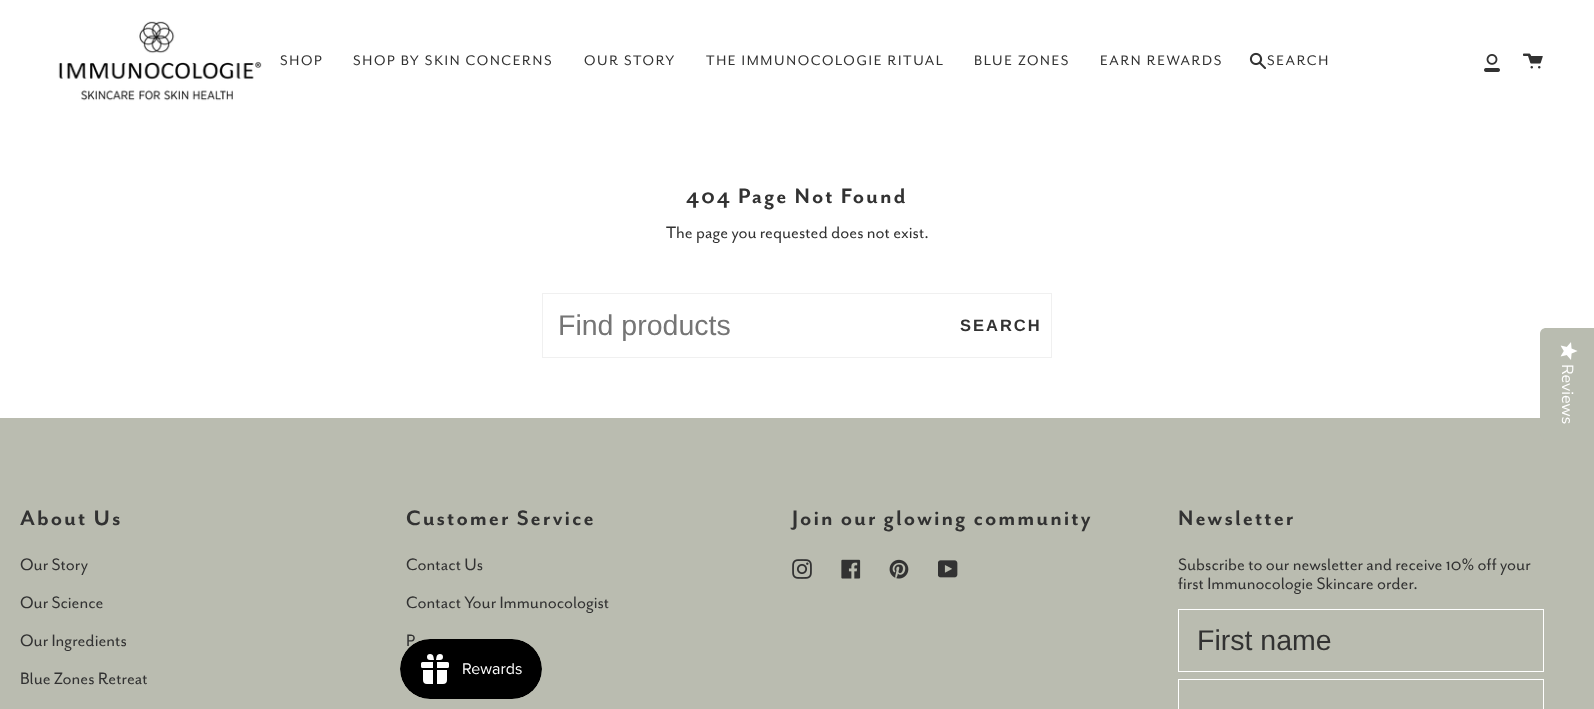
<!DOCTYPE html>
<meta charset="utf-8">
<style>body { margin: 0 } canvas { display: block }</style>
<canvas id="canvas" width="1594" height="709"></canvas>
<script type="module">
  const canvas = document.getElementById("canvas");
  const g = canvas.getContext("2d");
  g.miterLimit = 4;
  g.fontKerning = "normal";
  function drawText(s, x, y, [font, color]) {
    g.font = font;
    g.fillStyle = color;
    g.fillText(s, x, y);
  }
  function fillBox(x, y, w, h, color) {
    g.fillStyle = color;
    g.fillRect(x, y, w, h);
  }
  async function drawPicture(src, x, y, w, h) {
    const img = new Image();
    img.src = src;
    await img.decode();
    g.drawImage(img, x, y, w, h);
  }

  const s1 = ["16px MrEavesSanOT", "#323232"];
  const s2 = ["bold 24px MrEavesSanOT", "#323232"];
  const s3 = ["19px MrEavesSanOT", "#323232"];
  const s4 = ["28.5px Liberation Sans", "#757575"];
  const s5 = ["bold 16.5px Liberation Sans", "#323232"];
  const s6 = ["28.5px Liberation Sans", "#323232"];

  fillBox(0, 0, 1594, 709, "#FFFFFF");
  await drawPicture("pic1.png", 58, 21, 204, 80);
  g.letterSpacing = "1.65px";
  drawText("SHOP", 280, 65, s1);
  drawText("SHOP BY SKIN CONCERNS", 353, 65, s1);
  drawText("OUR STORY", 584, 65, s1);
  drawText("THE IMMUNOCOLOGIE RITUAL", 706, 65, s1);
  drawText("BLUE ZONES", 974, 65, s1);
  drawText("EARN REWARDS", 1100, 65, s1);
  await drawPicture("pic2.png", 1249, 52, 17, 17);
  drawText("SEARCH", 1267, 65, s1);
  await drawPicture("pic3.png", 1484, 54, 16, 18);
  await drawPicture("pic4.png", 1523, 53, 20, 16);
  g.letterSpacing = "2px";
  drawText("404 Page Not Found", 686, 203, s2);
  g.letterSpacing = "0px";
  drawText("The page you requested does not exist.", 666, 238, s3);
  g.strokeStyle = "#F0F0F0";
  g.strokeRect(542.5, 293.5, 509, 64);
  drawText("Find products", 558, 335, s4);
  g.letterSpacing = "2px";
  drawText("SEARCH", 960, 331, s5);
  fillBox(0, 418, 1594, 291, "#BABCB0");
  g.fillStyle = "#B9BCB0";
  g.beginPath();
  g.moveTo(1594, 328);
  g.lineTo(1594, 440);
  g.lineTo(1546, 440);
  g.bezierCurveTo(1543, 440, 1540, 437, 1540, 434);
  g.lineTo(1540, 334);
  g.bezierCurveTo(1540, 330, 1543, 328, 1546, 328);
  g.closePath();
  g.fill();
  await drawPicture("pic5.png", 1560, 342, 18, 18);
  g.letterSpacing = "0px";
  g.font = "200 16px Nunito Sans";
  g.fillStyle = "#FFFFFF";
  g.save();
  g.translate(1562, 364);
  g.rotate(90 * Math.PI / 180);
  g.fillText("Reviews", 0, 0);
  g.restore();
  g.letterSpacing = "2px";
  drawText("About Us", 20, 525, s2);
  g.letterSpacing = "0px";
  drawText("Our Story", 20, 570, s3);
  drawText("Our Science", 20, 608, s3);
  drawText("Our Ingredients", 20, 646, s3);
  drawText("Blue Zones Retreat", 20, 684, s3);
  g.letterSpacing = "2px";
  drawText("Customer Service", 406, 525, s2);
  g.letterSpacing = "0px";
  drawText("Contact Us", 406, 570, s3);
  drawText("Contact Your Immunocologist", 406, 608, s3);
  drawText("P", 406, 646, s3);
  g.letterSpacing = "2px";
  drawText("Join our glowing community", 792, 525, s2);
  await drawPicture("pic6.png", 792, 559, 20, 20);
  await drawPicture("pic7.png", 841, 559, 20, 20);
  await drawPicture("pic8.png", 889, 559, 20, 20);
  await drawPicture("pic9.png", 938, 560, 20, 18);
  drawText("Newsletter", 1178, 525, s2);
  g.letterSpacing = "0px";
  drawText("Subscribe to our newsletter and receive 10% off your", 1178, 570, s3);
  drawText("first Immunocologie Skincare order.", 1178, 589, s3);
  g.strokeStyle = "#FFFFFF";
  g.strokeRect(1178.5, 609.5, 365, 62);
  drawText("First name", 1197, 650, s6);
  g.strokeRect(1178.5, 679.5, 365, 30);
  await drawPicture("pic10.png", 400, 639, 142, 60);
</script>
